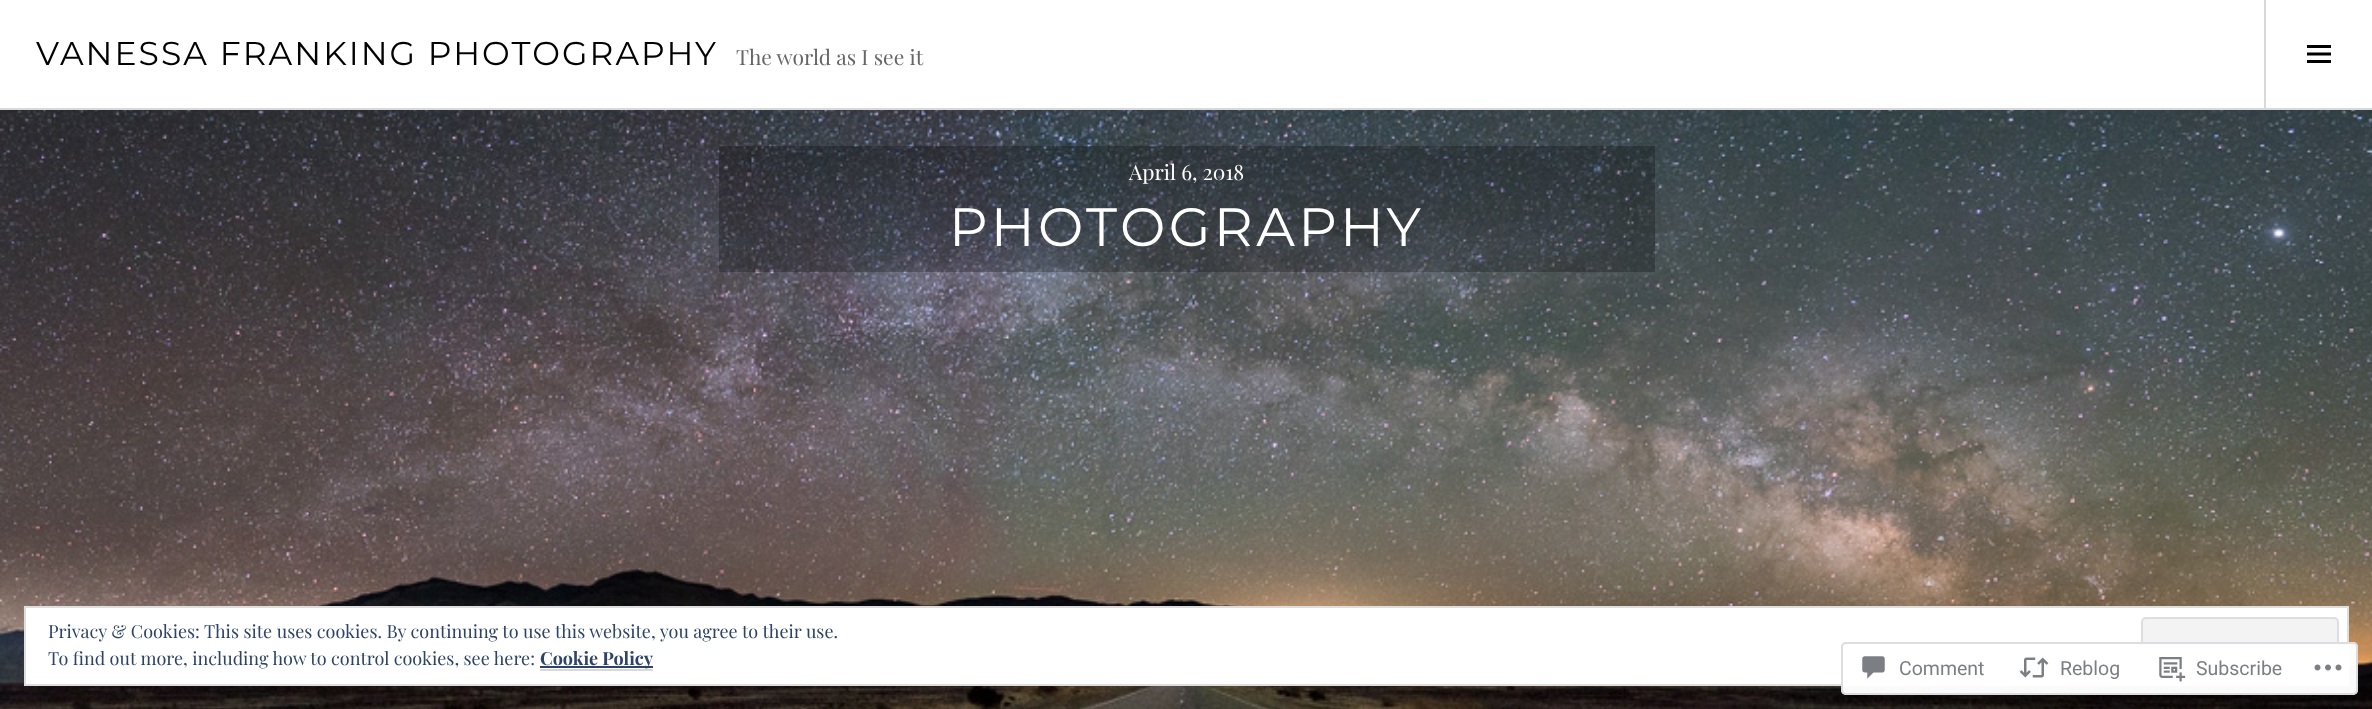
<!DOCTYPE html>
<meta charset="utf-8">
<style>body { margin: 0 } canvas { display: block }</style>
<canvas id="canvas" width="2372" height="709"></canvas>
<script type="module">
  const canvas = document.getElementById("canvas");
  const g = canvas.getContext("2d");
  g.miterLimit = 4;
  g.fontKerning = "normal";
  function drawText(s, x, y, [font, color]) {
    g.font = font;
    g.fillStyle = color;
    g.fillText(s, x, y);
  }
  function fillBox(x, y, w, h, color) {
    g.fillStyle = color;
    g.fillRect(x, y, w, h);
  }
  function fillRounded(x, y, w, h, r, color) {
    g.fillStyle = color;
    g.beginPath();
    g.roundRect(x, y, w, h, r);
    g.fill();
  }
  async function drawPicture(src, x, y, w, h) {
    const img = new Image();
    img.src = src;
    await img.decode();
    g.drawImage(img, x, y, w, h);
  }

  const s1 = ["33px Montserrat", "#000000"];
  const s2 = ["21px Playfair Display", "#666666"];
  const s3 = ["21px Playfair Display", "#FFFFFF"];
  const s4 = ["54px Montserrat", "#FFFFFF"];
  const s5 = ["18px Playfair Display", "#2E4467"];
  const s6 = ["bold 18px Playfair Display", "#2E4467"];
  const s7 = ["19.5px Roboto", "#7B7F85"];

  fillBox(0, 0, 2372, 709, "#FFFFFF");
  fillBox(0, 108, 2372, 2, "#D9D9D9");
  g.letterSpacing = "2.05px";
  drawText("VANESSA FRANKING PHOTOGRAPHY", 36, 65, s1);
  g.letterSpacing = "0px";
  drawText("The world as I see it", 736, 65, s2);
  fillBox(2264, 0, 2, 108, "#D9D9D9");
  await drawPicture("pic1.png", 2307, 45, 24, 18);
  await drawPicture("pic2.png", 0, 110, 2372, 599);
  fillBox(719, 146, 936, 126, "rgba(0, 0, 0, 0.25)");
  drawText("April 6, 2018", 1129, 180, s3);
  g.letterSpacing = "3.4px";
  drawText("PHOTOGRAPHY", 949, 246, s4);
  g.beginPath();
  g.rect(25, 607, 2323, 78);
  g.fill();
  g.strokeStyle = "#DEDEDE";
  g.lineWidth = 2;
  g.stroke();
  g.letterSpacing = "0px";
  drawText("Privacy & Cookies: This site uses cookies. By continuing to use this website, you agree to their use.", 48, 638, s5);
  g.fillStyle = "#F3F3F3";
  g.beginPath();
  g.roundRect(2142, 618, 196, 56, 4);
  g.fill();
  g.stroke();
  drawText("To find out more, including how to control cookies, see here:", 48, 665, s5);
  fillBox(540, 666, 113, 2, "#2E4467");
  drawText("Cookie Policy", 540, 665, s6);
  fillBox(540, 669, 113, 2, "#D9D9D9");
  fillRounded(1841, 642, 517, 53, 5, "rgba(255, 255, 255, 0.98)");
  g.beginPath();
  g.roundRect(1842, 643, 515, 51, 4);
  g.strokeStyle = "rgba(220, 220, 222, 0.98)";
  g.stroke();
  await drawPicture("pic3.png", 1862, 656, 23, 23);
  drawText("Comment", 1899, 675, s7);
  await drawPicture("pic4.png", 2019, 657, 30, 21);
  drawText("Reblog", 2060, 675, s7);
  await drawPicture("pic5.png", 2159, 657, 27, 25);
  drawText("Subscribe", 2196, 675, s7);
  await drawPicture("pic6.png", 2314, 664, 28, 7);
</script>
